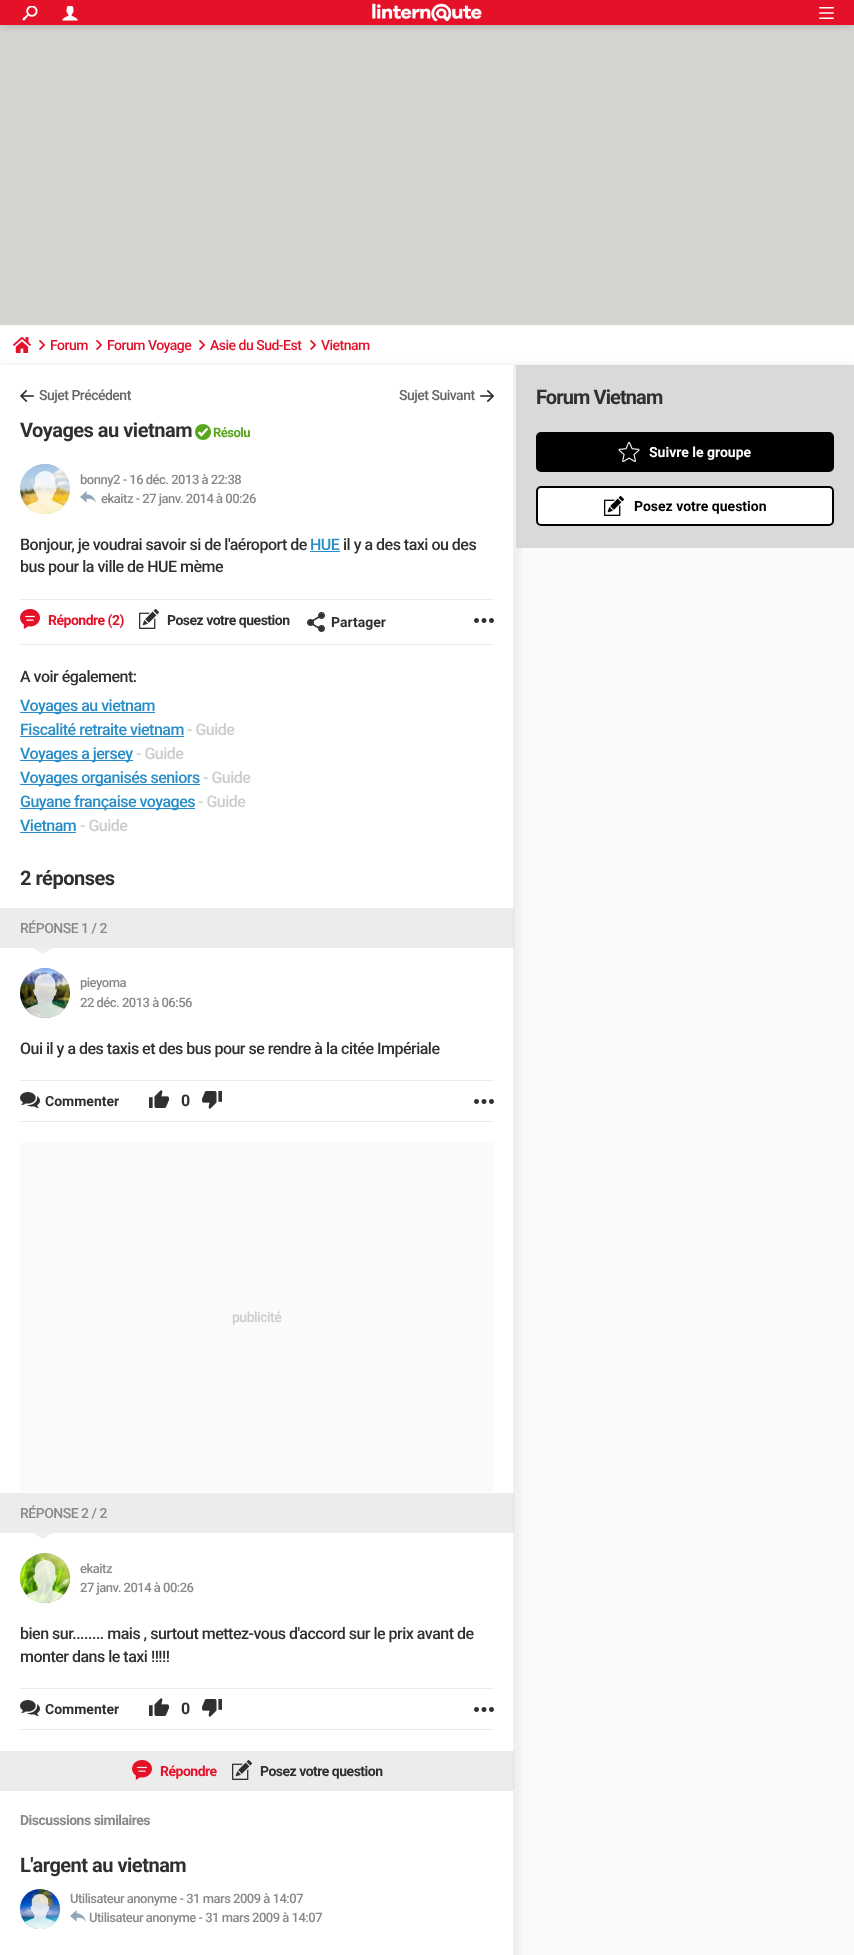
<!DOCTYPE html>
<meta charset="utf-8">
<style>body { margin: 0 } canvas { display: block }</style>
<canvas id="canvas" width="854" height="1955"></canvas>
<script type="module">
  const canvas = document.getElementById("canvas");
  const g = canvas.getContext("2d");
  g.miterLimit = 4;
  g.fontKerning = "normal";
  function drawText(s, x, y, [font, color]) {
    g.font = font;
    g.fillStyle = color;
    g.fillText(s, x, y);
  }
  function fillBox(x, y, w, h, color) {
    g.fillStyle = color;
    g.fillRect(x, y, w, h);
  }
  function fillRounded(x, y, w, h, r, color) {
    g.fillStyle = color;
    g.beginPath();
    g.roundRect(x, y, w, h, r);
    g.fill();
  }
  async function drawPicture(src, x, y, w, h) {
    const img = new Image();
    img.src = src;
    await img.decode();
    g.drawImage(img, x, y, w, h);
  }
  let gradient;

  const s1 = ["500 14px Roboto", "#E41129"];
  const s2 = ["500 14px Roboto", "#666666"];
  const s3 = ["bold 20px Roboto", "#303030"];
  const s4 = ["bold 13px Roboto", "#58A61E"];
  const s5 = ["500 13px Roboto", "#898989"];
  const s6 = ["500 16px Roboto", "#303030"];
  const s7 = ["500 16px Roboto", "#298EC8"];
  const s8 = ["bold 14px Roboto", "#E41129"];
  const s9 = ["bold 14px Roboto", "#303030"];
  const s10 = ["500 16px Roboto", "#CCCCCC"];
  const s11 = ["500 14px Roboto", "#898989"];
  const s12 = ["bold 16px Roboto", "#303030"];
  const s13 = ["500 14px Roboto", "#CCCCCC"];
  const s14 = ["bold 14px Roboto", "#898989"];
  const s15 = ["bold 14px Roboto", "#FFFFFF"];
  const s16 = ["bold 14px Roboto", "#000000"];

  fillBox(0, 0, 854, 1955, "#D5D4D0");
  g.fillStyle = "rgba(0, 0, 0, 0.2)";
  g.filter = "blur(4px)";
  g.beginPath();
  g.rect(0, 0, 854, 25);
  g.fill();
  g.filter = "none";
  fillBox(0, 0, 854, 25, "#E41129");
  await drawPicture("pic1.png", 22, 6, 16, 15);
  await drawPicture("pic2.png", 62, 6, 16, 15);
  await drawPicture("pic3.png", 372, 3, 110, 19);
  await drawPicture("pic4.png", 819, 7, 15, 12);
  fillBox(0, 325, 854, 40, "#FFFFFF");
  await drawPicture("pic5.png", 13, 337, 18, 16);
  await drawPicture("pic6.png", 39, 340, 6, 10);
  g.letterSpacing = "-0.5px";
  drawText("Forum", 50, 350, s1);
  await drawPicture("pic6.png", 96, 340, 6, 10);
  drawText("Forum Voyage", 107, 350, s1);
  await drawPicture("pic6.png", 199, 340, 6, 10);
  drawText("Asie du Sud-Est", 210, 350, s1);
  await drawPicture("pic6.png", 310, 340, 6, 10);
  drawText("Vietnam", 321, 350, s1);
  g.fillStyle = "rgba(0, 0, 0, 0.1)";
  g.filter = "blur(3px)";
  g.beginPath();
  g.rect(0, 365, 854, 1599);
  g.fill();
  g.filter = "none";
  fillBox(0, 365, 514, 1590, "#FFFFFF");
  await drawPicture("pic7.png", 20, 390, 14, 12);
  drawText("Sujet Précédent", 39, 400, s2);
  drawText("Sujet Suivant", 399, 400, s2);
  await drawPicture("pic8.png", 480, 390, 14, 12);
  drawText("Voyages au vietnam", 20, 437, s3);
  g.fillStyle = "#58A61E";
  g.beginPath();
  g.arc(203, 432, 8, 0, Math.PI * 2);
  g.fill();
  await drawPicture("pic9.png", 198, 428, 10, 9);
  drawText("Résolu", 213, 437, s4);
  g.fillStyle = "#B0BECB";
  g.beginPath();
  g.arc(45, 489, 25, 0, Math.PI * 2);
  g.fill();
  await drawPicture("pic10.png", 20, 464, 50, 50);
  await drawPicture("pic11.png", 26, 471, 38, 43);
  drawText("bonny2 - 16 déc. 2013 à 22:38", 80, 484, s5);
  await drawPicture("pic12.png", 80, 491, 16, 12);
  drawText("ekaitz - 27 janv. 2014 à 00:26", 101, 503, s5);
  drawText("Bonjour, je voudrai savoir si de l'aéroport de", 20, 550, s6);
  drawText("HUE", 310, 550, s7);
  fillBox(310, 551, 30, 1, "#298EC8");
  drawText("il y a des taxi ou des", 343, 550, s6);
  drawText("bus pour la ville de HUE mème", 20, 572, s6);
  fillBox(20, 599, 474, 1, "#ECECEC");
  fillBox(20, 644, 474, 1, "#ECECEC");
  await drawPicture("pic13.png", 20, 609, 20, 20);
  drawText("Répondre (2)", 48, 625, s8);
  await drawPicture("pic14.png", 139, 609, 20, 20);
  drawText("Posez votre question", 167, 625, s9);
  await drawPicture("pic15.png", 307, 612, 18, 20);
  g.letterSpacing = "0px";
  drawText("Partager", 331, 627, s9);
  await drawPicture("pic16.png", 474, 618, 20, 5);
  g.letterSpacing = "-0.5px";
  drawText("A voir également:", 20, 682, s6);
  fillBox(20, 712, 135, 1, "#298EC8");
  drawText("Voyages au vietnam", 20, 711, s7);
  drawText("Fiscalité retraite vietnam", 20, 735, s7);
  fillBox(20, 736, 164, 1, "#298EC8");
  drawText("- Guide", 187, 735, s10);
  fillBox(20, 760, 113, 1, "#298EC8");
  drawText("Voyages a jersey", 20, 759, s7);
  drawText("- Guide", 136, 759, s10);
  fillBox(20, 784, 180, 1, "#298EC8");
  drawText("Voyages organisés seniors", 20, 783, s7);
  drawText("- Guide", 203, 783, s10);
  fillBox(20, 808, 175, 1, "#298EC8");
  drawText("Guyane française voyages", 20, 807, s7);
  drawText("- Guide", 198, 807, s10);
  drawText("Vietnam", 20, 831, s7);
  fillBox(20, 832, 56, 1, "#298EC8");
  drawText("- Guide", 80, 831, s10);
  drawText("2 réponses", 20, 885, s3);
  fillBox(0, 908, 514, 40, "#ECECEC");
  drawText("RÉPONSE 1 / 2", 20, 933, s11);
  g.fillStyle = "#EEF0EF";
  g.beginPath();
  g.moveTo(33, 948);
  g.lineTo(53, 948);
  g.lineTo(43, 954);
  g.closePath();
  g.fill();
  g.fillStyle = "#B0BECB";
  g.beginPath();
  g.arc(45, 993, 25, 0, Math.PI * 2);
  g.fill();
  await drawPicture("pic17.png", 20, 968, 50, 50);
  await drawPicture("pic18.png", 26, 974, 38, 44);
  drawText("pieyoma", 80, 987, s5);
  drawText("22 déc. 2013 à 06:56", 80, 1007, s5);
  drawText("Oui il y a des taxis et des bus pour se rendre à la citée Impériale", 20, 1054, s6);
  fillBox(20, 1080, 474, 1, "#ECECEC");
  fillBox(20, 1121, 474, 1, "#ECECEC");
  await drawPicture("pic19.png", 20, 1092, 20, 16);
  g.letterSpacing = "0px";
  drawText("Commenter", 45, 1106, s9);
  await drawPicture("pic20.png", 149, 1090, 20, 18);
  g.letterSpacing = "-0.5px";
  drawText("0", 181, 1106, s12);
  await drawPicture("pic21.png", 202, 1091, 20, 18);
  await drawPicture("pic16.png", 474, 1099, 20, 5);
  fillRounded(20, 1142, 474, 350, 3, "#FAFAFA");
  drawText("publicité", 232, 1322, s13);
  fillBox(0, 1493, 514, 40, "#ECECEC");
  drawText("RÉPONSE 2 / 2", 20, 1518, s11);
  g.fillStyle = "#EEF0EF";
  g.beginPath();
  g.moveTo(33, 1533);
  g.lineTo(53, 1533);
  g.lineTo(43, 1539);
  g.closePath();
  g.fill();
  g.fillStyle = "#B0BECB";
  g.beginPath();
  g.arc(45, 1578, 25, 0, Math.PI * 2);
  g.fill();
  await drawPicture("pic22.png", 20, 1553, 50, 50);
  await drawPicture("pic23.png", 26, 1560, 38, 43);
  drawText("ekaitz", 80, 1573, s5);
  drawText("27 janv. 2014 à 00:26", 80, 1592, s5);
  drawText("bien sur........ mais , surtout mettez-vous d'accord sur le prix avant de", 20, 1639, s6);
  drawText("monter dans le taxi !!!!!", 20, 1662, s6);
  fillBox(20, 1688, 474, 1, "#ECECEC");
  fillBox(20, 1729, 474, 1, "#ECECEC");
  await drawPicture("pic19.png", 20, 1700, 20, 16);
  g.letterSpacing = "0px";
  drawText("Commenter", 45, 1714, s9);
  await drawPicture("pic20.png", 149, 1698, 20, 18);
  g.letterSpacing = "-0.5px";
  drawText("0", 181, 1714, s12);
  await drawPicture("pic21.png", 202, 1699, 20, 18);
  await drawPicture("pic16.png", 474, 1707, 20, 5);
  fillBox(0, 1751, 514, 40, "#ECECEC");
  await drawPicture("pic24.png", 132, 1760, 20, 20);
  drawText("Répondre", 160, 1776, s8);
  await drawPicture("pic25.png", 232, 1760, 20, 20);
  drawText("Posez votre question", 260, 1776, s9);
  drawText("Discussions similaires", 20, 1825, s14);
  drawText("L'argent au vietnam", 20, 1872, s3);
  g.fillStyle = "#B0BECB";
  g.beginPath();
  g.arc(40, 1909, 20, 0, Math.PI * 2);
  g.fill();
  await drawPicture("pic26.png", 20, 1889, 40, 40);
  await drawPicture("pic27.png", 25, 1894, 30, 35);
  drawText("Utilisateur anonyme - 31 mars 2009 à 14:07", 70, 1903, s5);
  await drawPicture("pic12.png", 70, 1910, 16, 12);
  drawText("Utilisateur anonyme - 31 mars 2009 à 14:07", 89, 1922, s5);
  fillBox(514, 365, 340, 1590, "#FAFAFA");
  gradient = g.createLinearGradient(513, 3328, 528, 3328);
  gradient.addColorStop(0, "rgba(0, 0, 0, 0.05)");
  gradient.addColorStop(1, "rgba(0, 0, 0, 0)");
  g.fillStyle = gradient;
  g.fillRect(513, 365, 9, 1590);
  fillBox(516, 365, 338, 183, "#D9D9D9");
  g.letterSpacing = "-0.9px";
  drawText("Forum Vietnam", 536, 404, s3);
  g.fillStyle = "#000000";
  g.beginPath();
  g.roundRect(537, 433, 296, 38, 4);
  g.fill();
  g.strokeStyle = "#000000";
  g.lineWidth = 2;
  g.stroke();
  await drawPicture("pic28.png", 618, 442, 22, 20);
  g.letterSpacing = "0px";
  drawText("Suivre le groupe", 649, 457, s15);
  g.beginPath();
  g.roundRect(537, 487, 296, 38, 4);
  g.fill();
  g.stroke();
  await drawPicture("pic29.png", 604, 496, 20, 20);
  drawText("Posez votre question", 634, 511, s16);
</script>
